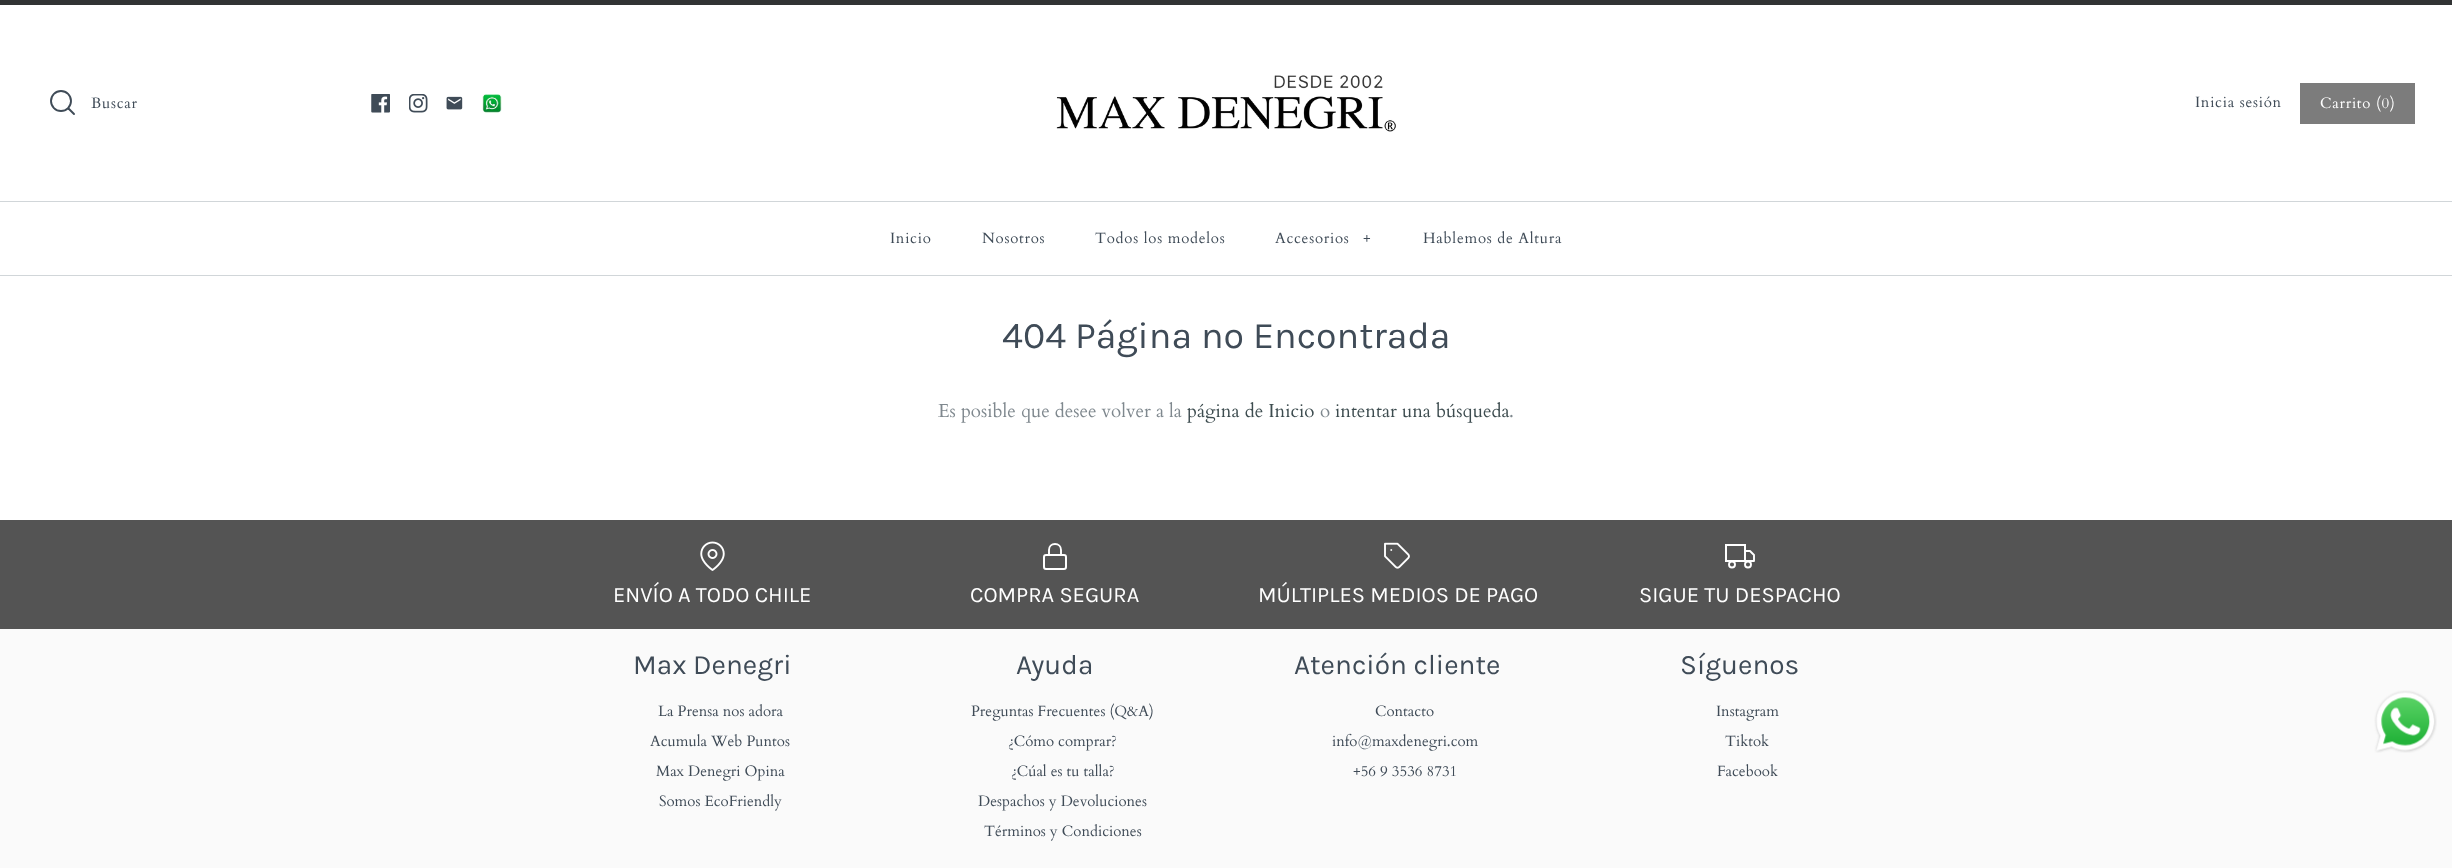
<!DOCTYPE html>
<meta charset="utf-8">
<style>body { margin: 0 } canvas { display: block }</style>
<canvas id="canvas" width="2452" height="868"></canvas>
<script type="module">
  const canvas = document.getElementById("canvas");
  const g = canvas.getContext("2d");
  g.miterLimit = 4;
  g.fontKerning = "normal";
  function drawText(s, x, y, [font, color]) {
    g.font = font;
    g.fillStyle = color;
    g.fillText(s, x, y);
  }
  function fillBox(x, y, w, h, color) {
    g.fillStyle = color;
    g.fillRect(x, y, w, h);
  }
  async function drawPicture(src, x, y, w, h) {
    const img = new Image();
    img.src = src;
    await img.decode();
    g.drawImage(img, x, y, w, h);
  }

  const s1 = ["15px Cardo", "#3F4B57"];
  const s2 = ["15px Cardo", "#FFFFFF"];
  const s3 = ["37.5px Karla", "#3F4B57"];
  const s4 = ["18.75px Cardo", "#7F888E"];
  const s5 = ["18.75px Cardo", "#3D4C4F"];
  const s6 = ["21.9px Karla", "#FFFFFF"];
  const s7 = ["28px Karla", "#3F4B57"];

  fillBox(0, 0, 2452, 868, "#FFFFFF");
  fillBox(0, 0, 2452, 5, "#313334");
  await drawPicture("pic1.png", 1056, 75, 340, 57);
  g.beginPath();
  g.arc(61, 101, 10, 0, Math.PI * 2);
  g.strokeStyle = "#3F4B57";
  g.lineWidth = 1.9;
  g.stroke();
  g.beginPath();
  g.moveTo(74, 114);
  g.lineTo(68.5, 108.5);
  g.lineCap = "round";
  g.lineJoin = "round";
  g.stroke();
  g.letterSpacing = "0.75px";
  drawText("Buscar", 91, 108, s1);
  await drawPicture("pic2.png", 371, 94, 19, 19);
  await drawPicture("pic3.png", 409, 94, 19, 19);
  await drawPicture("pic4.png", 446, 96, 17, 14);
  await drawPicture("pic5.png", 482, 94, 20, 19);
  drawText("Inicia sesión", 2195, 107, s1);
  fillBox(2300, 83, 115, 41, "#7C7C7C");
  drawText("Carrito (0)", 2320, 108, s2);
  fillBox(0, 275, 2452, 1, "#D1D6D9");
  fillBox(0, 201, 2452, 1, "#D1D6D9");
  drawText("Inicio", 890, 243, s1);
  drawText("Nosotros", 982, 243, s1);
  drawText("Todos los modelos", 1095, 243, s1);
  drawText("Accesorios", 1275, 243, s1);
  drawText("+", 1363, 243, s1);
  drawText("Hablemos de Altura", 1423, 243, s1);
  g.letterSpacing = "0px";
  drawText("404 Página no Encontrada", 1002, 348, s3);
  drawText("Es posible que desee volver a la", 938, 417, s4);
  drawText("página de Inicio", 1187, 417, s5);
  drawText("o", 1320, 417, s4);
  drawText("intentar una búsqueda", 1335, 417, s5);
  drawText(".", 1509, 417, s4);
  fillBox(0, 629, 2452, 239, "#FAFAFA");
  fillBox(0, 520, 2452, 109, "#545454");
  await drawPicture("pic6.png", 700, 541, 25, 30);
  drawText("ENVÍO A TODO CHILE", 613, 602, s6);
  g.beginPath();
  g.roundRect(1044, 555, 22, 14, 2);
  g.strokeStyle = "#FFFFFF";
  g.lineWidth = 2;
  g.lineJoin = "miter";
  g.stroke();
  g.beginPath();
  g.moveTo(1049, 555);
  g.lineTo(1049, 550);
  g.bezierCurveTo(1049, 546.5, 1051.5, 544, 1055, 544);
  g.bezierCurveTo(1058.5, 544, 1061, 546.5, 1061, 550);
  g.lineTo(1061, 555);
  g.lineWidth = 1.9;
  g.lineJoin = "round";
  g.stroke();
  drawText("COMPRA SEGURA", 970, 602, s6);
  await drawPicture("pic7.png", 1384, 542, 26, 27);
  drawText("MÚLTIPLES MEDIOS DE PAGO", 1258, 602, s6);
  g.lineWidth = 2;
  g.lineJoin = "miter";
  g.strokeRect(1726, 545, 19, 16);
  g.beginPath();
  g.moveTo(1745, 551);
  g.lineTo(1750, 551);
  g.lineTo(1754, 555);
  g.lineTo(1754, 561);
  g.lineTo(1745, 561);
  g.closePath();
  g.lineWidth = 1.9;
  g.lineJoin = "round";
  g.stroke();
  g.beginPath();
  g.arc(1732, 564.5, 3, 0, Math.PI * 2);
  g.stroke();
  g.beginPath();
  g.arc(1748, 564.5, 3, 0, Math.PI * 2);
  g.stroke();
  drawText("SIGUE TU DESPACHO", 1639, 602, s6);
  drawText("Max Denegri", 633, 674, s7);
  drawText("La Prensa nos adora", 658, 716, s1);
  drawText("Acumula Web Puntos", 650, 746, s1);
  drawText("Max Denegri Opina", 656, 776, s1);
  drawText("Somos EcoFriendly", 659, 806, s1);
  drawText("Ayuda", 1016, 674, s7);
  drawText("Preguntas Frecuentes (Q&A)", 971, 716, s1);
  drawText("¿Cómo comprar?", 1008, 746, s1);
  drawText("¿Cúal es tu talla?", 1011, 776, s1);
  drawText("Despachos y Devoluciones", 978, 806, s1);
  drawText("Términos y Condiciones", 984, 836, s1);
  drawText("Atención cliente", 1294, 674, s7);
  drawText("Contacto", 1375, 716, s1);
  drawText("info@maxdenegri.com", 1332, 746, s1);
  drawText("+56 9 3536 8731", 1353, 776, s1);
  drawText("Síguenos", 1680, 674, s7);
  drawText("Instagram", 1716, 716, s1);
  drawText("Tiktok", 1725, 746, s1);
  drawText("Facebook", 1717, 776, s1);
  await drawPicture("pic8.png", 2374, 690, 63, 63);
</script>
